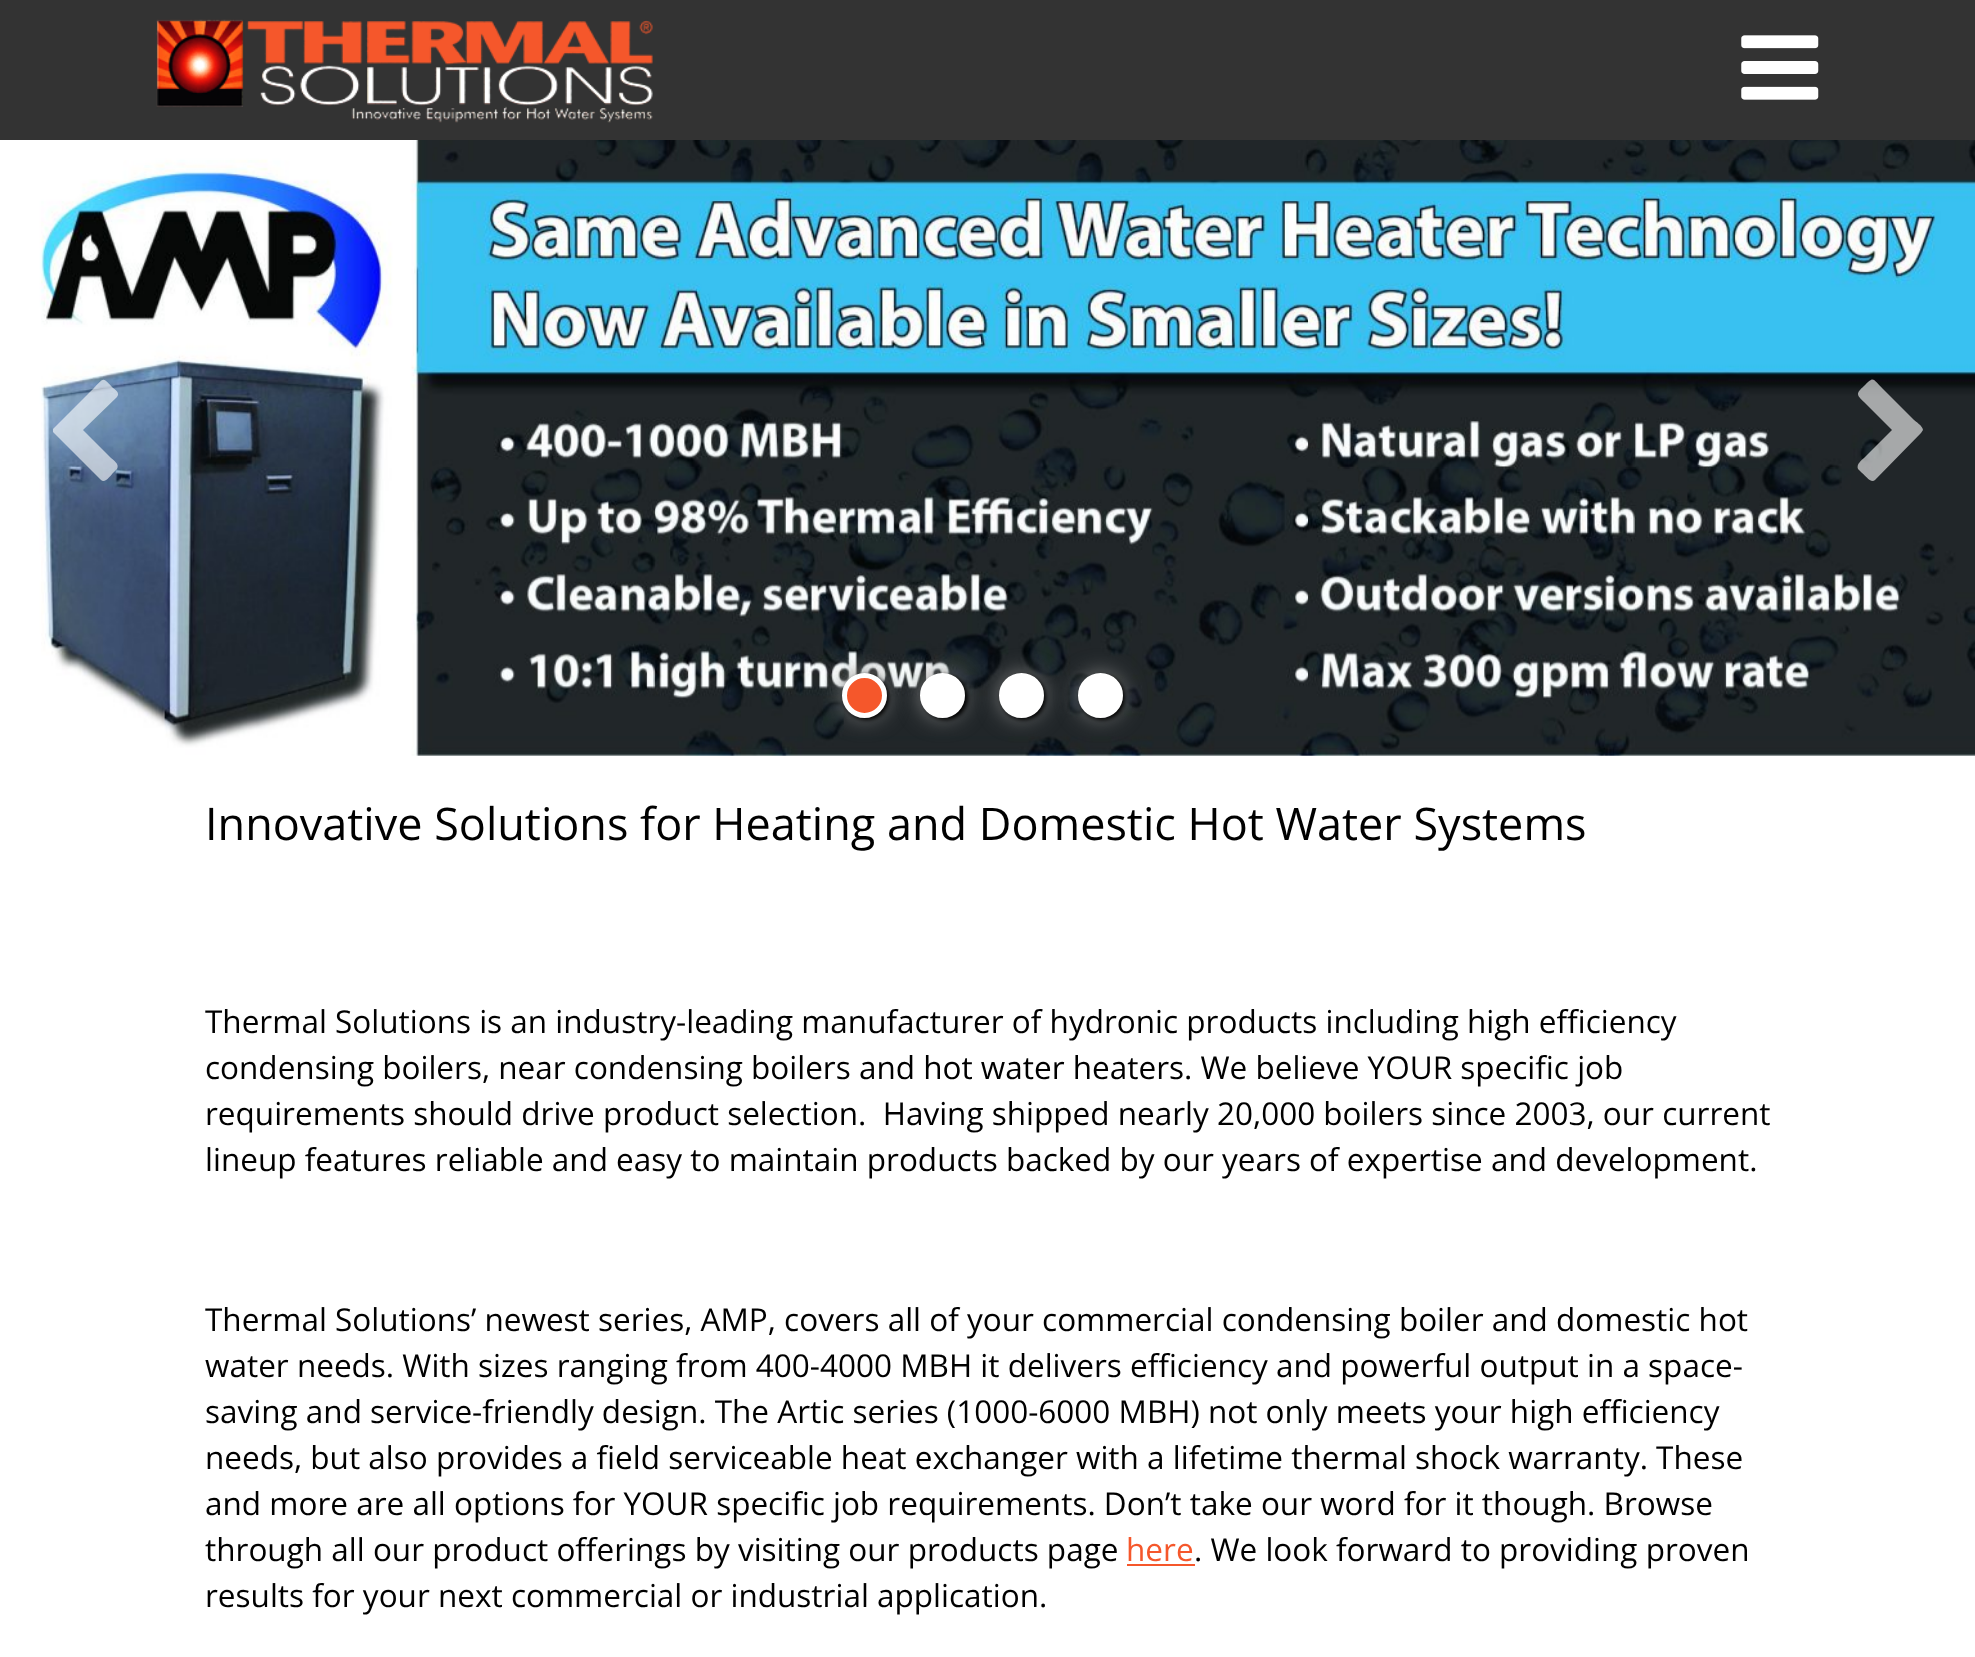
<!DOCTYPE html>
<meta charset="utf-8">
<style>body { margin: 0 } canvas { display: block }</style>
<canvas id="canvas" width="1975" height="1657"></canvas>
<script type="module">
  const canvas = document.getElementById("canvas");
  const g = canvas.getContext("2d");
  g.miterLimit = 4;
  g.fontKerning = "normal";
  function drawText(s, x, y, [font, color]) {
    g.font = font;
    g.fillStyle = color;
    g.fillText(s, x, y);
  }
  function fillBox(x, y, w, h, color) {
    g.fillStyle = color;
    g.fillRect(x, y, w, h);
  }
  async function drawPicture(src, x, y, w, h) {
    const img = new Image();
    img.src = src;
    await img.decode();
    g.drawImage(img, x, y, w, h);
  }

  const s1 = ["45px Open Sans", "#000000"];
  const s2 = ["31.5px Open Sans", "#000000"];
  const s3 = ["31.5px Open Sans", "#F5572B"];

  fillBox(0, 0, 1975, 1657, "#FFFFFF");
  fillBox(0, 0, 1975, 140, "#333333");
  await drawPicture("pic1.png", 156, 19, 497, 104);
  await drawPicture("pic2.png", 1741, 35, 78, 65);
  await drawPicture("pic3.png", 0, 140, 1975, 616);
  g.fillStyle = "#808080";
  g.filter = "blur(11px)";
  g.beginPath();
  g.roundRect(842, 673, 45, 45, 22.5);
  g.fill();
  g.filter = "none";
  g.fillStyle = "#000000";
  g.filter = "blur(2px)";
  g.beginPath();
  g.roundRect(844, 675, 45, 45, 22.5);
  g.fill();
  g.filter = "none";
  g.fillStyle = "#F5572B";
  g.beginPath();
  g.arc(864.5, 695.5, 20, 0, Math.PI * 2);
  g.fill();
  g.strokeStyle = "#FFFFFF";
  g.lineWidth = 5;
  g.stroke();
  g.fillStyle = "#808080";
  g.filter = "blur(11px)";
  g.beginPath();
  g.roundRect(920, 673, 45, 45, 22.5);
  g.fill();
  g.filter = "none";
  g.fillStyle = "#000000";
  g.filter = "blur(2px)";
  g.beginPath();
  g.roundRect(923, 675, 45, 45, 22.5);
  g.fill();
  g.filter = "none";
  g.fillStyle = "#FFFFFF";
  g.beginPath();
  g.arc(942.5, 695.5, 20, 0, Math.PI * 2);
  g.fill();
  g.stroke();
  g.fillStyle = "#808080";
  g.filter = "blur(11px)";
  g.beginPath();
  g.roundRect(999, 673, 45, 45, 22.5);
  g.fill();
  g.filter = "none";
  g.fillStyle = "#000000";
  g.filter = "blur(2px)";
  g.beginPath();
  g.roundRect(1001, 675, 45, 45, 22.5);
  g.fill();
  g.filter = "none";
  g.fillStyle = "#FFFFFF";
  g.beginPath();
  g.arc(1021.5, 695.5, 20, 0, Math.PI * 2);
  g.fill();
  g.stroke();
  g.fillStyle = "#808080";
  g.filter = "blur(11px)";
  g.beginPath();
  g.roundRect(1078, 673, 45, 45, 22.5);
  g.fill();
  g.filter = "none";
  g.fillStyle = "#000000";
  g.filter = "blur(2px)";
  g.beginPath();
  g.roundRect(1080, 675, 45, 45, 22.5);
  g.fill();
  g.filter = "none";
  g.fillStyle = "#FFFFFF";
  g.beginPath();
  g.arc(1100.5, 695.5, 20, 0, Math.PI * 2);
  g.fill();
  g.stroke();
  g.fillStyle = "rgba(255, 255, 255, 0.6)";
  g.beginPath();
  g.moveTo(117, 397);
  g.bezierCurveTo(120, 393, 116, 390, 113, 388);
  g.bezierCurveTo(102, 377, 105, 377, 93, 389);
  g.lineTo(53, 429);
  g.bezierCurveTo(53, 430, 53, 431, 53, 432);
  g.lineTo(101, 480);
  g.bezierCurveTo(105, 484, 111, 475, 113, 473);
  g.lineTo(117, 469);
  g.bezierCurveTo(120, 464, 113, 460, 111, 458);
  g.lineTo(83, 430);
  g.closePath();
  g.fill();
  g.beginPath();
  g.moveTo(1921, 433);
  g.lineTo(1923, 430);
  g.bezierCurveTo(1923, 426, 1915, 421, 1914, 420);
  g.lineTo(1883, 389);
  g.bezierCurveTo(1872, 378, 1874, 376, 1864, 386);
  g.bezierCurveTo(1862, 388, 1858, 391, 1858, 394);
  g.bezierCurveTo(1858, 397, 1863, 401, 1864, 402);
  g.lineTo(1892, 430);
  g.lineTo(1864, 458);
  g.bezierCurveTo(1862, 460, 1856, 464, 1858, 469);
  g.lineTo(1862, 473);
  g.bezierCurveTo(1865, 475, 1871, 484, 1875, 480);
  g.closePath();
  g.fill();
  drawText("Innovative Solutions for Heating and Domestic Hot Water Systems", 205, 840, s1);
  drawText("Thermal Solutions is an industry-leading manufacturer of hydronic products including high efficiency", 205, 1033, s2);
  drawText("condensing boilers, near condensing boilers and hot water heaters. We believe YOUR specific job", 205, 1079, s2);
  drawText("requirements should drive product selection.  Having shipped nearly 20,000 boilers since 2003, our current", 205, 1125, s2);
  drawText("lineup features reliable and easy to maintain products backed by our years of expertise and development.", 205, 1171, s2);
  drawText("Thermal Solutions’ newest series, AMP, covers all of your commercial condensing boiler and domestic hot", 205, 1331, s2);
  drawText("water needs. With sizes ranging from 400-4000 MBH it delivers efficiency and powerful output in a space-", 205, 1377, s2);
  drawText("saving and service-friendly design. The Artic series (1000-6000 MBH) not only meets your high efficiency", 205, 1423, s2);
  drawText("needs, but also provides a field serviceable heat exchanger with a lifetime thermal shock warranty. These", 205, 1469, s2);
  drawText("and more are all options for YOUR specific job requirements. Don’t take our word for it though. Browse", 205, 1515, s2);
  drawText("through all our product offerings by visiting our products page", 205, 1561, s2);
  drawText("here", 1126, 1561, s3);
  drawText(". We look forward to providing proven", 1194, 1561, s2);
  fillBox(1127, 1564, 68, 2, "#F5572B");
  drawText("results for your next commercial or industrial application.", 205, 1607, s2);
</script>
